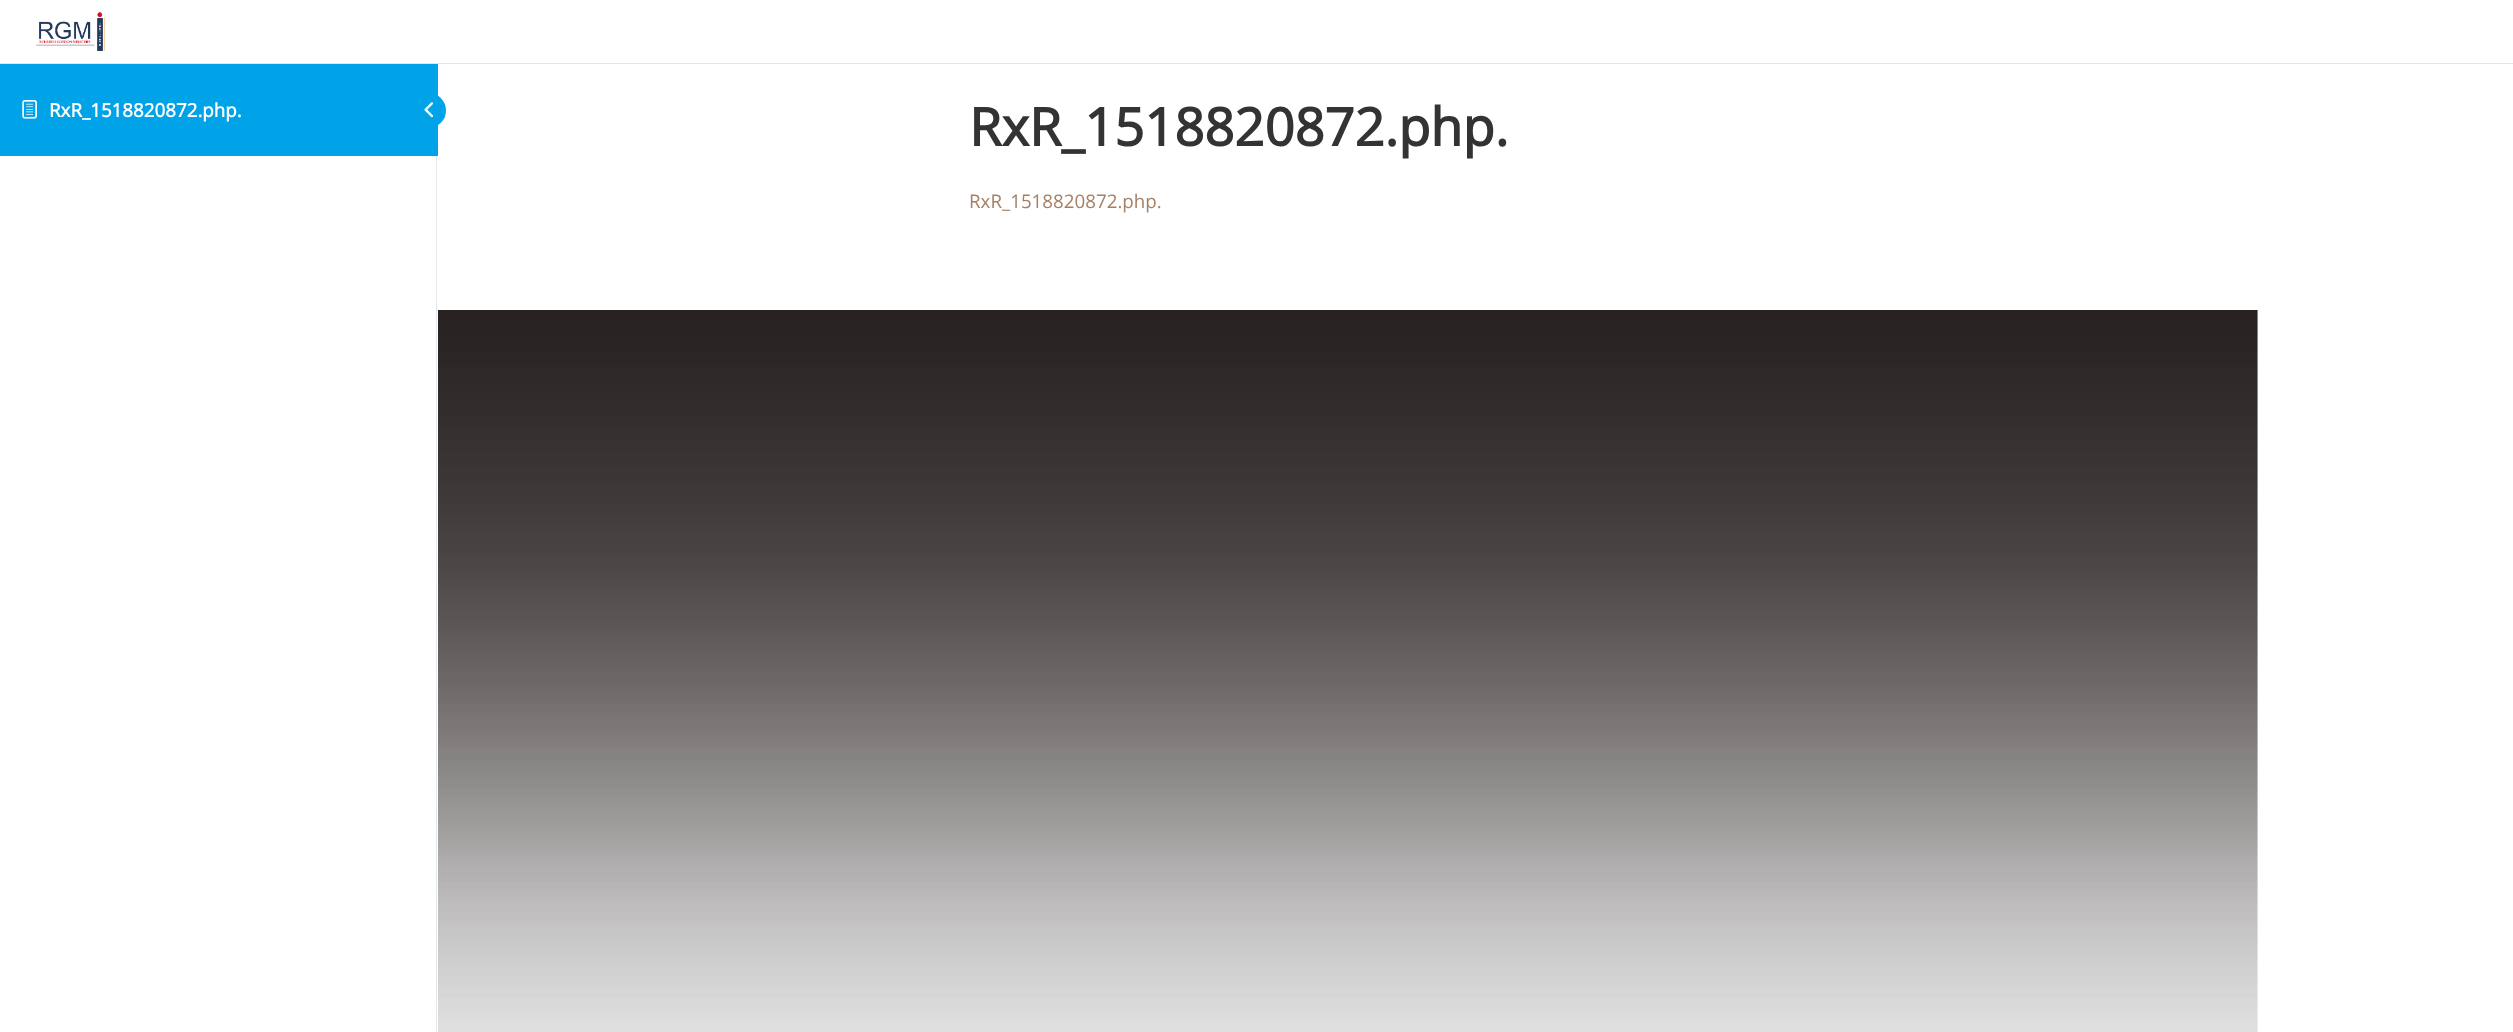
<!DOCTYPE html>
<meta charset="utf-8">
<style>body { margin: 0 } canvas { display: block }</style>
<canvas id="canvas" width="2513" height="1032"></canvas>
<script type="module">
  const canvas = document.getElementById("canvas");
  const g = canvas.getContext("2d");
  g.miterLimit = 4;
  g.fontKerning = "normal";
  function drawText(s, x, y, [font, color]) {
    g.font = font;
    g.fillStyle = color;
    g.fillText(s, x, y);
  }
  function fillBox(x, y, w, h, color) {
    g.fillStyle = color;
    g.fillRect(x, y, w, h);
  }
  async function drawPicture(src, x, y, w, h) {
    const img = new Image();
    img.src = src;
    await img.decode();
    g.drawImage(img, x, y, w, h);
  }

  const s1 = ["bold 18.75px Open Sans", "#FFFFFF"];
  const s2 = ["bold 52.5px Open Sans", "#333333"];
  const s3 = ["18.75px Open Sans", "#A68064"];

  fillBox(0, 0, 2513, 1032, "#FFFFFF");
  await drawPicture("pic1.png", 438, 310, 1820, 722);
  fillBox(436, 156, 1, 876, "#E2E7ED");
  fillBox(0, 64, 438, 92, "#00A2E8");
  await drawPicture("pic2.png", 22, 100, 15, 19);
  drawText("RxR_1518820872.php.", 49, 117, s1);
  g.fillStyle = "#00A2E8";
  g.beginPath();
  g.arc(428.5, 110.5, 17.5, 0, Math.PI * 2);
  g.fill();
  await drawPicture("pic3.png", 424, 102, 9, 16);
  fillBox(0, 63, 2513, 1, "#E2E7ED");
  await drawPicture("pic4.png", 36, 12, 69, 40);
  drawText("RxR_1518820872.php.", 969, 146, s2);
  drawText("RxR_1518820872.php.", 969, 208, s3);
</script>
